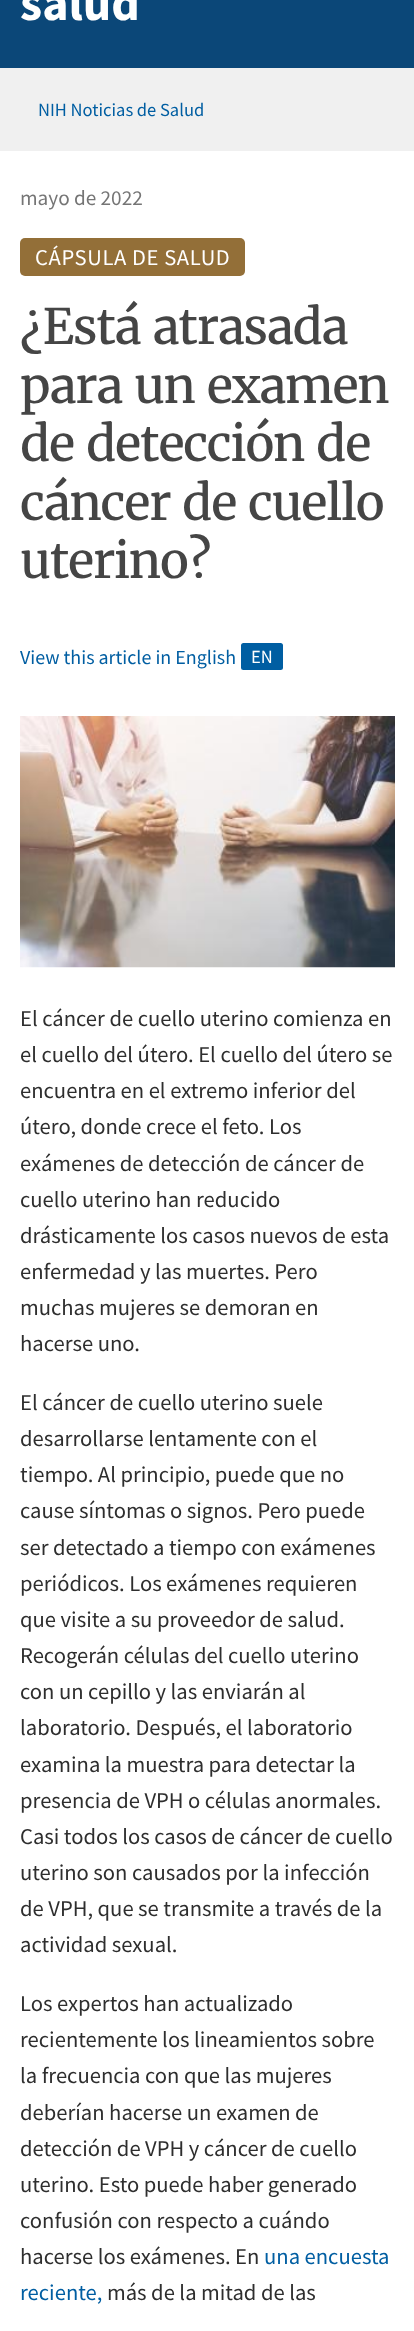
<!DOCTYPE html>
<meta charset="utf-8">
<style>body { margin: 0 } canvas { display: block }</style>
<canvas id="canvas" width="414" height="2331"></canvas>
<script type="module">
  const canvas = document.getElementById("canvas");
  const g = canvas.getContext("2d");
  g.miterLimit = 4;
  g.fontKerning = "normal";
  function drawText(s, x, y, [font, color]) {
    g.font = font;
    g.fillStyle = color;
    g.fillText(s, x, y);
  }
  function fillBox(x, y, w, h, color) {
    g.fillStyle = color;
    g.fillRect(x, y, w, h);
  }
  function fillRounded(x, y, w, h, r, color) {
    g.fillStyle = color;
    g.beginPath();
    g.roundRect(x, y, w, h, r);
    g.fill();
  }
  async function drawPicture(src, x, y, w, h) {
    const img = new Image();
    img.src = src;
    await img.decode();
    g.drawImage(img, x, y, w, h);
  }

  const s1 = ["bold 50px Source Sans Pro", "#FFFFFF"];
  const s2 = ["18.5px Source Sans Pro", "#005EA2"];
  const s3 = ["21.25px Source Sans Pro", "#757575"];
  const s4 = ["22.6px Source Sans Pro", "#FFFFFF"];
  const s5 = ["48.75px Merriweather", "#454545"];
  const s6 = ["20px Source Sans Pro", "#005EA2"];
  const s7 = ["18.5px Source Sans Pro", "#FFFFFF"];
  const s8 = ["22.6px Source Sans Pro", "#2E2E2E"];
  const s9 = ["22.6px Source Sans Pro", "#005EA2"];

  fillBox(0, 0, 414, 2331, "#FFFFFF");
  fillBox(0, 0, 414, 68, "#0B4778");
  drawText("salud", 20, 20, s1);
  fillBox(0, 68, 414, 83, "#F0F0F0");
  drawText("NIH Noticias de Salud", 38, 116, s2);
  drawText("mayo de 2022", 20, 205, s3);
  fillRounded(20, 238, 225, 38, 5, "#936F38");
  g.letterSpacing = "0.6px";
  drawText("CÁPSULA DE SALUD", 35, 265, s4);
  g.letterSpacing = "-1.5px";
  drawText("¿Está atrasada", 20, 344, s5);
  drawText("para un examen", 20, 403, s5);
  drawText("de detección de", 20, 461, s5);
  drawText("cáncer de cuello", 20, 520, s5);
  drawText("uterino?", 20, 578, s5);
  g.letterSpacing = "0px";
  drawText("View this article in English", 20, 664, s6);
  fillRounded(241, 643, 42, 27, 2.5, "#005EA2");
  drawText("EN", 251, 663, s7);
  await drawPicture("pic1.png", 20, 716, 375, 252);
  drawText("El cáncer de cuello uterino comienza en", 20, 1026, s8);
  drawText("el cuello del útero. El cuello del útero se", 20, 1062, s8);
  drawText("encuentra en el extremo inferior del", 20, 1098, s8);
  drawText("útero, donde crece el feto. Los", 20, 1134, s8);
  drawText("exámenes de detección de cáncer de", 20, 1171, s8);
  drawText("cuello uterino han reducido", 20, 1207, s8);
  drawText("drásticamente los casos nuevos de esta", 20, 1243, s8);
  drawText("enfermedad y las muertes. Pero", 20, 1279, s8);
  drawText("muchas mujeres se demoran en", 20, 1315, s8);
  drawText("hacerse uno.", 20, 1351, s8);
  drawText("El cáncer de cuello uterino suele", 20, 1410, s8);
  drawText("desarrollarse lentamente con el", 20, 1446, s8);
  drawText("tiempo. Al principio, puede que no", 20, 1482, s8);
  drawText("cause síntomas o signos. Pero puede", 20, 1518, s8);
  drawText("ser detectado a tiempo con exámenes", 20, 1555, s8);
  drawText("periódicos. Los exámenes requieren", 20, 1591, s8);
  drawText("que visite a su proveedor de salud.", 20, 1627, s8);
  drawText("Recogerán células del cuello uterino", 20, 1663, s8);
  drawText("con un cepillo y las enviarán al", 20, 1699, s8);
  drawText("laboratorio. Después, el laboratorio", 20, 1735, s8);
  drawText("examina la muestra para detectar la", 20, 1772, s8);
  drawText("presencia de VPH o células anormales.", 20, 1808, s8);
  drawText("Casi todos los casos de cáncer de cuello", 20, 1844, s8);
  drawText("uterino son causados por la infección", 20, 1880, s8);
  drawText("de VPH, que se transmite a través de la", 20, 1916, s8);
  drawText("actividad sexual.", 20, 1952, s8);
  drawText("Los expertos han actualizado", 20, 2011, s8);
  drawText("recientemente los lineamientos sobre", 20, 2047, s8);
  drawText("la frecuencia con que las mujeres", 20, 2083, s8);
  drawText("deberían hacerse un examen de", 20, 2120, s8);
  drawText("detección de VPH y cáncer de cuello", 20, 2156, s8);
  drawText("uterino. Esto puede haber generado", 20, 2192, s8);
  drawText("confusión con respecto a cuándo", 20, 2228, s8);
  drawText("hacerse los exámenes. En", 20, 2264, s8);
  drawText("una encuesta", 264, 2264, s9);
  drawText("reciente,", 20, 2300, s9);
  drawText("más de la mitad de las", 107, 2300, s8);
</script>
